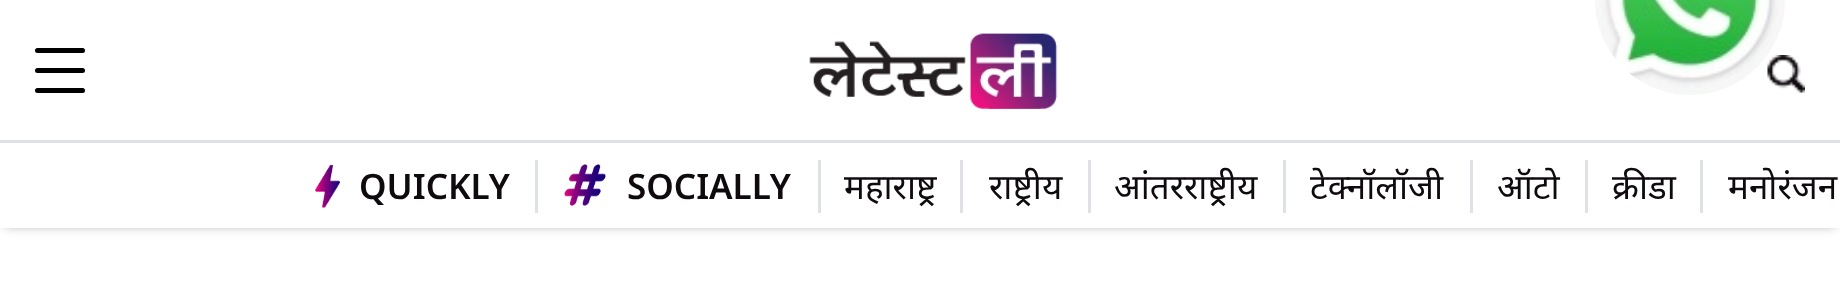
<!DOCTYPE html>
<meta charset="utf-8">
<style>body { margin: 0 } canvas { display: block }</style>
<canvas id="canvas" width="1840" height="305"></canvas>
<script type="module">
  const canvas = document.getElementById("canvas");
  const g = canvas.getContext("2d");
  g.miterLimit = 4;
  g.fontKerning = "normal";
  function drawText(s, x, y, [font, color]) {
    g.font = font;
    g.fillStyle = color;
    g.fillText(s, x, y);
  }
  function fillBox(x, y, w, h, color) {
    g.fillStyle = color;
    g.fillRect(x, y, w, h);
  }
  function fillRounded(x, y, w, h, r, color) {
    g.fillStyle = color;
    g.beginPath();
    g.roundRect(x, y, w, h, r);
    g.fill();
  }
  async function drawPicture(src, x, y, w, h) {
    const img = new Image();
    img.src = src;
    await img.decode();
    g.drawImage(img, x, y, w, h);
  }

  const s1 = ["600 35px Noto Sans", "#0F0A0E"];
  const s2 = ["35px Noto Sans", "#0F0A0E"];

  fillBox(0, 0, 1840, 305, "#FFFFFF");
  g.fillStyle = "#9A9A9A";
  g.filter = "blur(6px)";
  g.beginPath();
  g.rect(5, 8, 1830, 217);
  g.fill();
  g.filter = "none";
  fillBox(0, 0, 1840, 228, "#FFFFFF");
  await drawPicture("pic3.png", 1767, 55, 38, 38);
  await drawPicture("pic1.png", 1595, 0, 190, 95);
  fillBox(0, 140, 1840, 3, "#DEE2E6");
  fillRounded(35, 48, 50, 5, 2.5, "#000000");
  fillRounded(35, 68, 50, 5, 2.5, "#000000");
  fillRounded(35, 88, 50, 5, 2.5, "#000000");
  await drawPicture("pic2.png", 809, 33, 249, 76);
  fillBox(535, 160, 3, 53, "#DEE2E6");
  await drawPicture("pic4.png", 315, 165, 25, 43);
  drawText("QUICKLY", 359, 199, s1);
  fillBox(818, 160, 3, 53, "#DEE2E6");
  await drawPicture("pic5.png", 564, 164, 42, 42);
  drawText("SOCIALLY", 627, 199, s1);
  fillBox(960, 160, 3, 53, "#DEE2E6");
  drawText("महाराष्ट्र", 844, 199, s2);
  fillBox(1088, 160, 3, 53, "#DEE2E6");
  drawText("राष्ट्रीय", 989, 199, s2);
  fillBox(1283, 160, 3, 53, "#DEE2E6");
  drawText("आंतरराष्ट्रीय", 1114, 199, s2);
  fillBox(1470, 160, 3, 53, "#DEE2E6");
  drawText("टेक्नॉलॉजी", 1310, 199, s2);
  fillBox(1585, 160, 3, 53, "#DEE2E6");
  drawText("ऑटो", 1497, 199, s2);
  fillBox(1700, 160, 3, 53, "#DEE2E6");
  drawText("क्रीडा", 1612, 199, s2);
  drawText("मनोरंजन", 1728, 199, s2);
</script>
